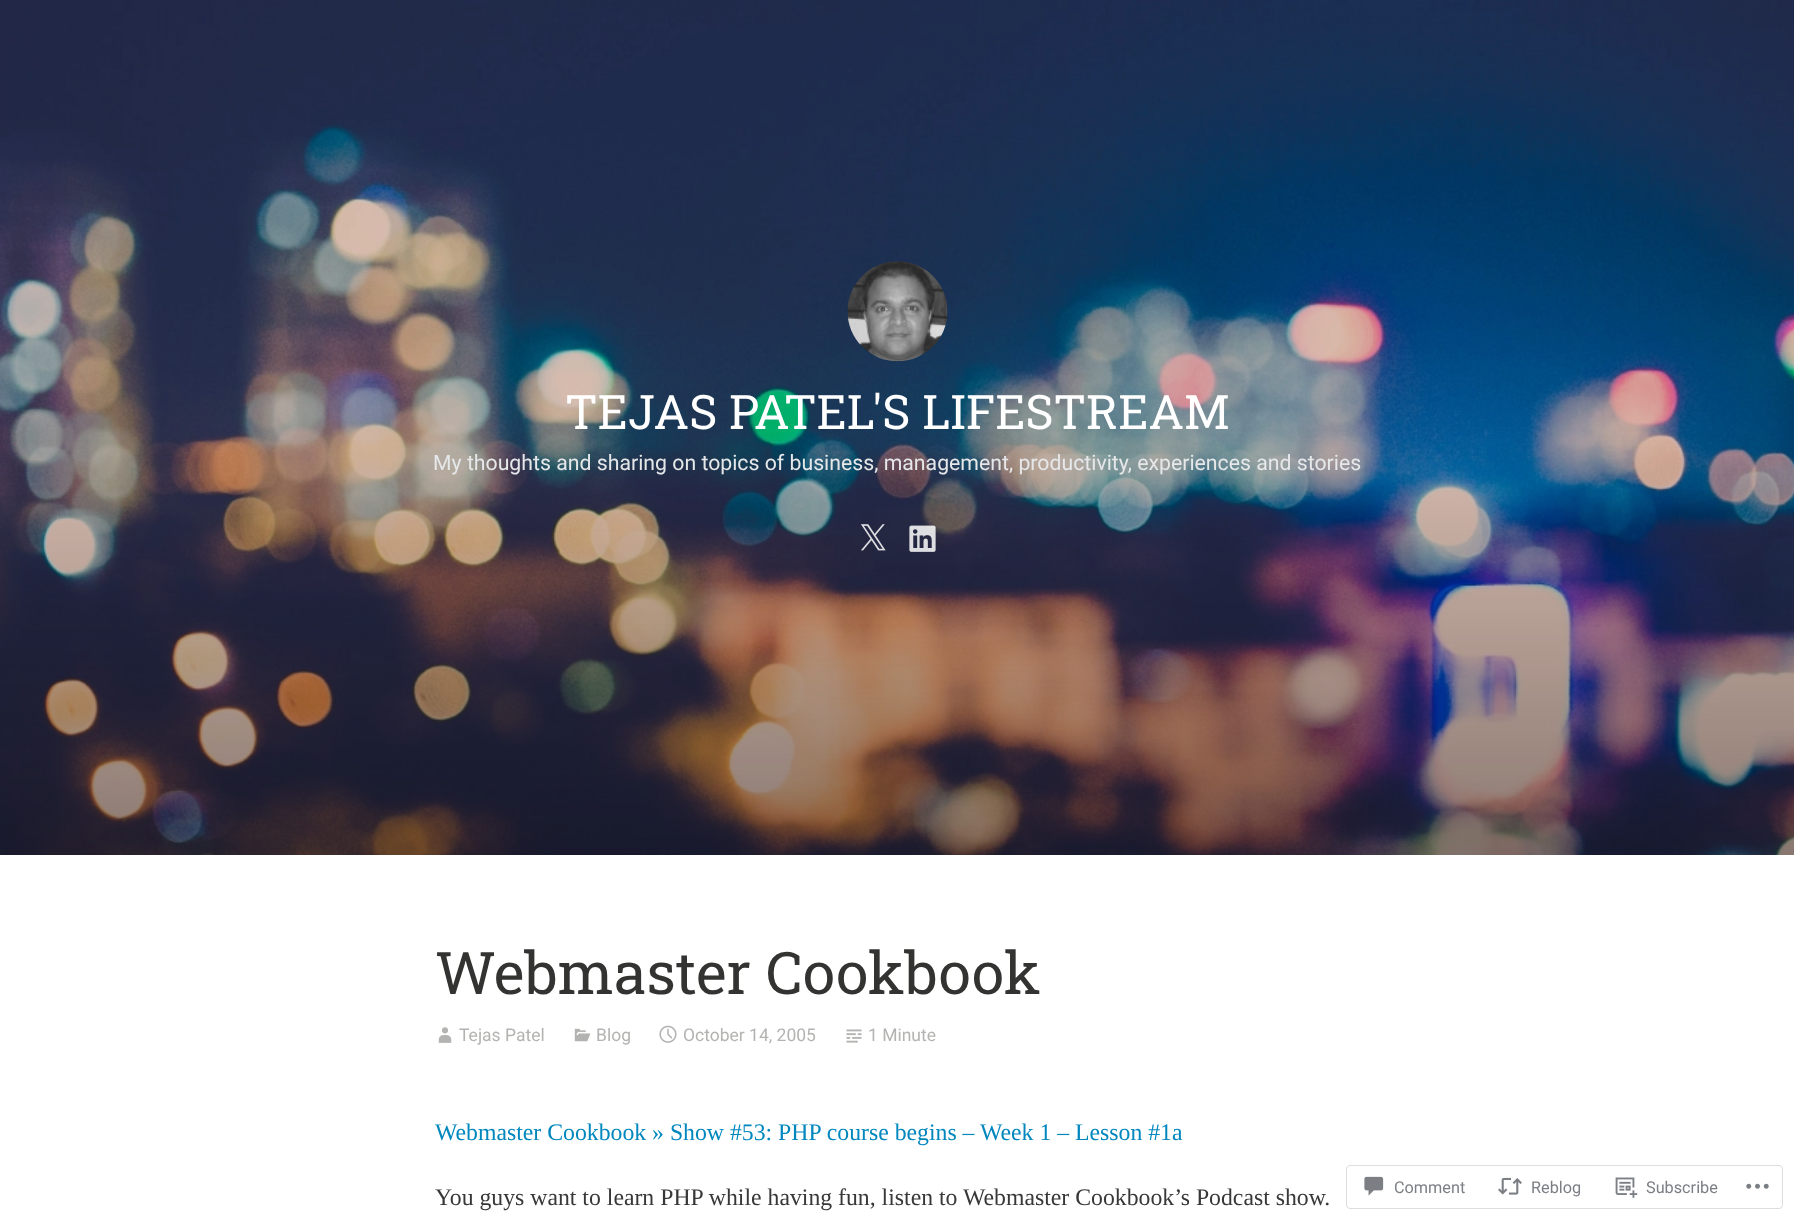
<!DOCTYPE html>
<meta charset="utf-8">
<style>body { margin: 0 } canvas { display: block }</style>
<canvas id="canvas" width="1794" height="1221"></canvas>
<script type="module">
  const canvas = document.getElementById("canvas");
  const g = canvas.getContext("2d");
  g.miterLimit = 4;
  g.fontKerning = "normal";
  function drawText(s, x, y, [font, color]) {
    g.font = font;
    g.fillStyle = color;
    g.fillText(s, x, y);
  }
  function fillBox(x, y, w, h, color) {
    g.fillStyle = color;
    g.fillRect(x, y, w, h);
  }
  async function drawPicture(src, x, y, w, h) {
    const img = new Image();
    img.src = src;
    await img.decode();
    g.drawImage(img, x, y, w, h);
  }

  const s1 = ["47.5px Roboto Slab", "#FFFFFF"];
  const s2 = ["21.25px Roboto", "#E5E7E9"];
  const s3 = ["58.75px Roboto Slab", "#333332"];
  const s4 = ["17.5px Roboto", "#B3B3B1"];
  const s5 = ["23.75px Liberation Serif", "#0087BE"];
  const s6 = ["23.75px Liberation Serif", "#383838"];
  const s7 = ["16.25px Roboto", "#7B7F85"];

  fillBox(0, 0, 1794, 1221, "#FFFFFF");
  await drawPicture("pic1.png", 0, 0, 1794, 855);
  await drawPicture("pic2.png", 847, 261, 101, 101);
  drawText("TEJAS PATEL'S LIFESTREAM", 565, 429, s1);
  drawText("My thoughts and sharing on topics of business, management, productivity, experiences and stories", 433, 470, s2);
  await drawPicture("pic3.png", 861, 524, 25, 27);
  await drawPicture("pic4.png", 909, 525, 27, 27);
  drawText("Webmaster Cookbook", 435, 994, s3);
  await drawPicture("pic5.png", 438, 1027, 14, 16);
  drawText("Tejas Patel", 459, 1041, s4);
  await drawPicture("pic6.png", 574, 1028, 17, 14);
  drawText("Blog", 596, 1041, s4);
  await drawPicture("pic7.png", 659, 1025, 18, 18);
  drawText("October 14, 2005", 683, 1041, s4);
  await drawPicture("pic8.png", 846, 1029, 16, 14);
  drawText("1 Minute", 868, 1041, s4);
  drawText("Webmaster Cookbook » Show #53: PHP course begins – Week 1 – Lesson #1a", 435, 1140, s5);
  drawText("You guys want to learn PHP while having fun, listen to Webmaster Cookbook’s Podcast show.", 435, 1205, s6);
  g.beginPath();
  g.roundRect(1346.5, 1165.5, 436, 43, 3.5);
  g.strokeStyle = "#DDDDDF";
  g.stroke();
  await drawPicture("pic9.png", 1364, 1176, 20, 20);
  drawText("Comment", 1394, 1193, s7);
  await drawPicture("pic10.png", 1498, 1177, 24, 18);
  drawText("Reblog", 1531, 1193, s7);
  await drawPicture("pic11.png", 1615, 1177, 23, 21);
  drawText("Subscribe", 1646, 1193, s7);
  await drawPicture("pic12.png", 1746, 1183, 23, 6);
</script>
